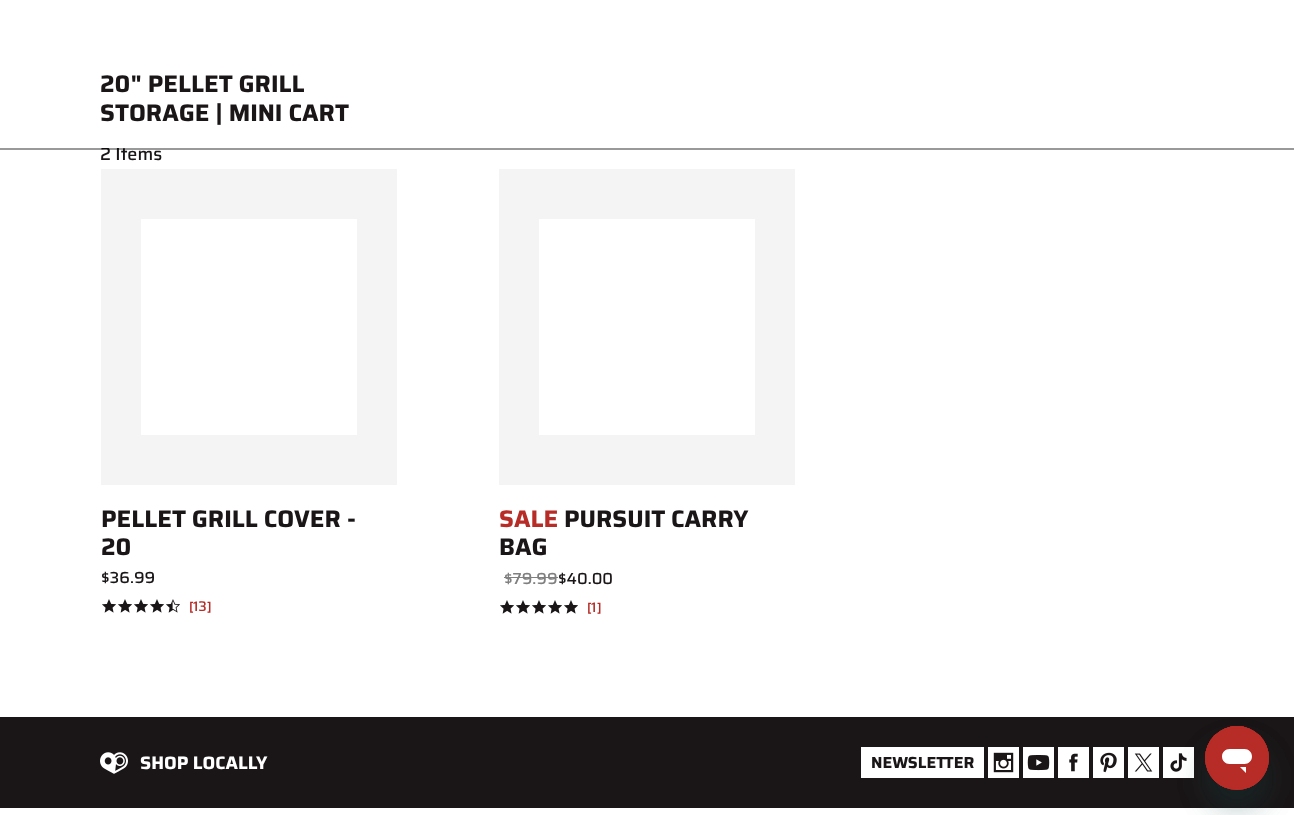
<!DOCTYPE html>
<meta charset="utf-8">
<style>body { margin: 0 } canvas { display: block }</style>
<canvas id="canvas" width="1294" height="815"></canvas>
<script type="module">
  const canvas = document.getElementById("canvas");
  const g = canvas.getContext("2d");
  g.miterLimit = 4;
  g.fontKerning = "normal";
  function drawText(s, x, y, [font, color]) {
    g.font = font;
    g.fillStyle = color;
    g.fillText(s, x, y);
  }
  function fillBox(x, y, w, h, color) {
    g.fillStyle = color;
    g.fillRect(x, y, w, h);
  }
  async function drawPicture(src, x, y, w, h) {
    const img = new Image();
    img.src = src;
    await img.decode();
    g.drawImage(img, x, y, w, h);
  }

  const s1 = ["500 18px Saira", "#1A1617"];
  const s2 = ["bold 24px 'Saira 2'", "#1A1617"];
  const s3 = ["500 16px Saira", "#1A1617"];
  const s4 = ["bold 12px Saira", "#B72C27"];
  const s5 = ["500 14px Saira", "#B72C27"];
  const s6 = ["bold 24px 'Saira 2'", "#B72C27"];
  const s7 = ["500 16px Saira", "#808080"];
  const s8 = ["bold 18px 'Saira 2'", "#FFFFFF"];
  const s9 = ["bold 16px 'Saira 2'", "#1A1617"];

  fillBox(0, 0, 1294, 815, "#FFFFFF");
  drawText("2 Items", 100, 160, s1);
  fillBox(101, 147, 19, 1, "#FFFFFF");
  drawText("20\" PELLET GRILL", 100, 92, s2);
  drawText("STORAGE | MINI CART", 100, 121, s2);
  fillBox(0, 148, 1294, 2, "rgba(0, 0, 0, 0.4)");
  fillBox(101, 169, 296, 316, "#F4F4F4");
  fillBox(141, 219, 216, 216, "#FFFFFF");
  drawText("PELLET GRILL COVER -", 101, 527, s2);
  drawText("20", 101, 555, s2);
  drawText("$36.99", 101, 583, s3);
  await drawPicture("pic1.png", 102, 599, 14, 14);
  await drawPicture("pic1.png", 118, 599, 14, 14);
  await drawPicture("pic1.png", 134, 599, 14, 14);
  await drawPicture("pic1.png", 150, 599, 14, 14);
  await drawPicture("pic2.png", 166, 599, 14, 14);
  drawText("[", 189, 611, s4);
  drawText("13", 193, 611, s5);
  drawText("]", 207, 611, s4);
  fillBox(499, 169, 296, 316, "#F4F4F4");
  fillBox(539, 219, 216, 216, "#FFFFFF");
  drawText("SALE", 499, 527, s6);
  drawText("PURSUIT CARRY", 564, 527, s2);
  drawText("BAG", 499, 555, s2);
  drawText("$79.99", 504, 584, s7);
  fillBox(504, 577, 54, 1, "#808080");
  drawText("$40.00", 558, 584, s3);
  await drawPicture("pic1.png", 500, 600, 14, 14);
  await drawPicture("pic1.png", 516, 600, 14, 14);
  await drawPicture("pic1.png", 532, 600, 14, 14);
  await drawPicture("pic1.png", 548, 600, 14, 14);
  await drawPicture("pic1.png", 564, 600, 14, 14);
  drawText("[", 587, 612, s4);
  drawText("1", 591, 612, s5);
  drawText("]", 597, 612, s4);
  fillBox(0, 717, 1294, 91, "#1A1617");
  await drawPicture("pic10.png", 1163, 747, 31, 31);
  g.fillStyle = "rgba(23, 73, 77, 0.15)";
  g.filter = "blur(15px)";
  g.beginPath();
  g.roundRect(1205, 746, 64, 64, 32);
  g.fill();
  g.filter = "none";
  await drawPicture("pic3.png", 1205, 726, 64, 64);
  await drawPicture("pic4.png", 100, 752, 28, 22);
  drawText("SHOP LOCALLY", 140, 769, s8);
  fillBox(861, 747, 123, 31, "#FFFFFF");
  drawText("NEWSLETTER", 871, 768, s9);
  await drawPicture("pic5.png", 988, 747, 31, 31);
  await drawPicture("pic6.png", 1023, 747, 31, 31);
  await drawPicture("pic7.png", 1058, 747, 31, 31);
  await drawPicture("pic8.png", 1093, 747, 31, 31);
  await drawPicture("pic9.png", 1128, 747, 31, 31);
  g.fillStyle = "rgba(23, 73, 77, 0.15)";
  g.filter = "blur(15px)";
  g.beginPath();
  g.roundRect(1205, 746, 64, 64, 32);
  g.fill();
  g.filter = "none";
  await drawPicture("pic11.png", 1205, 726, 64, 64);
</script>
